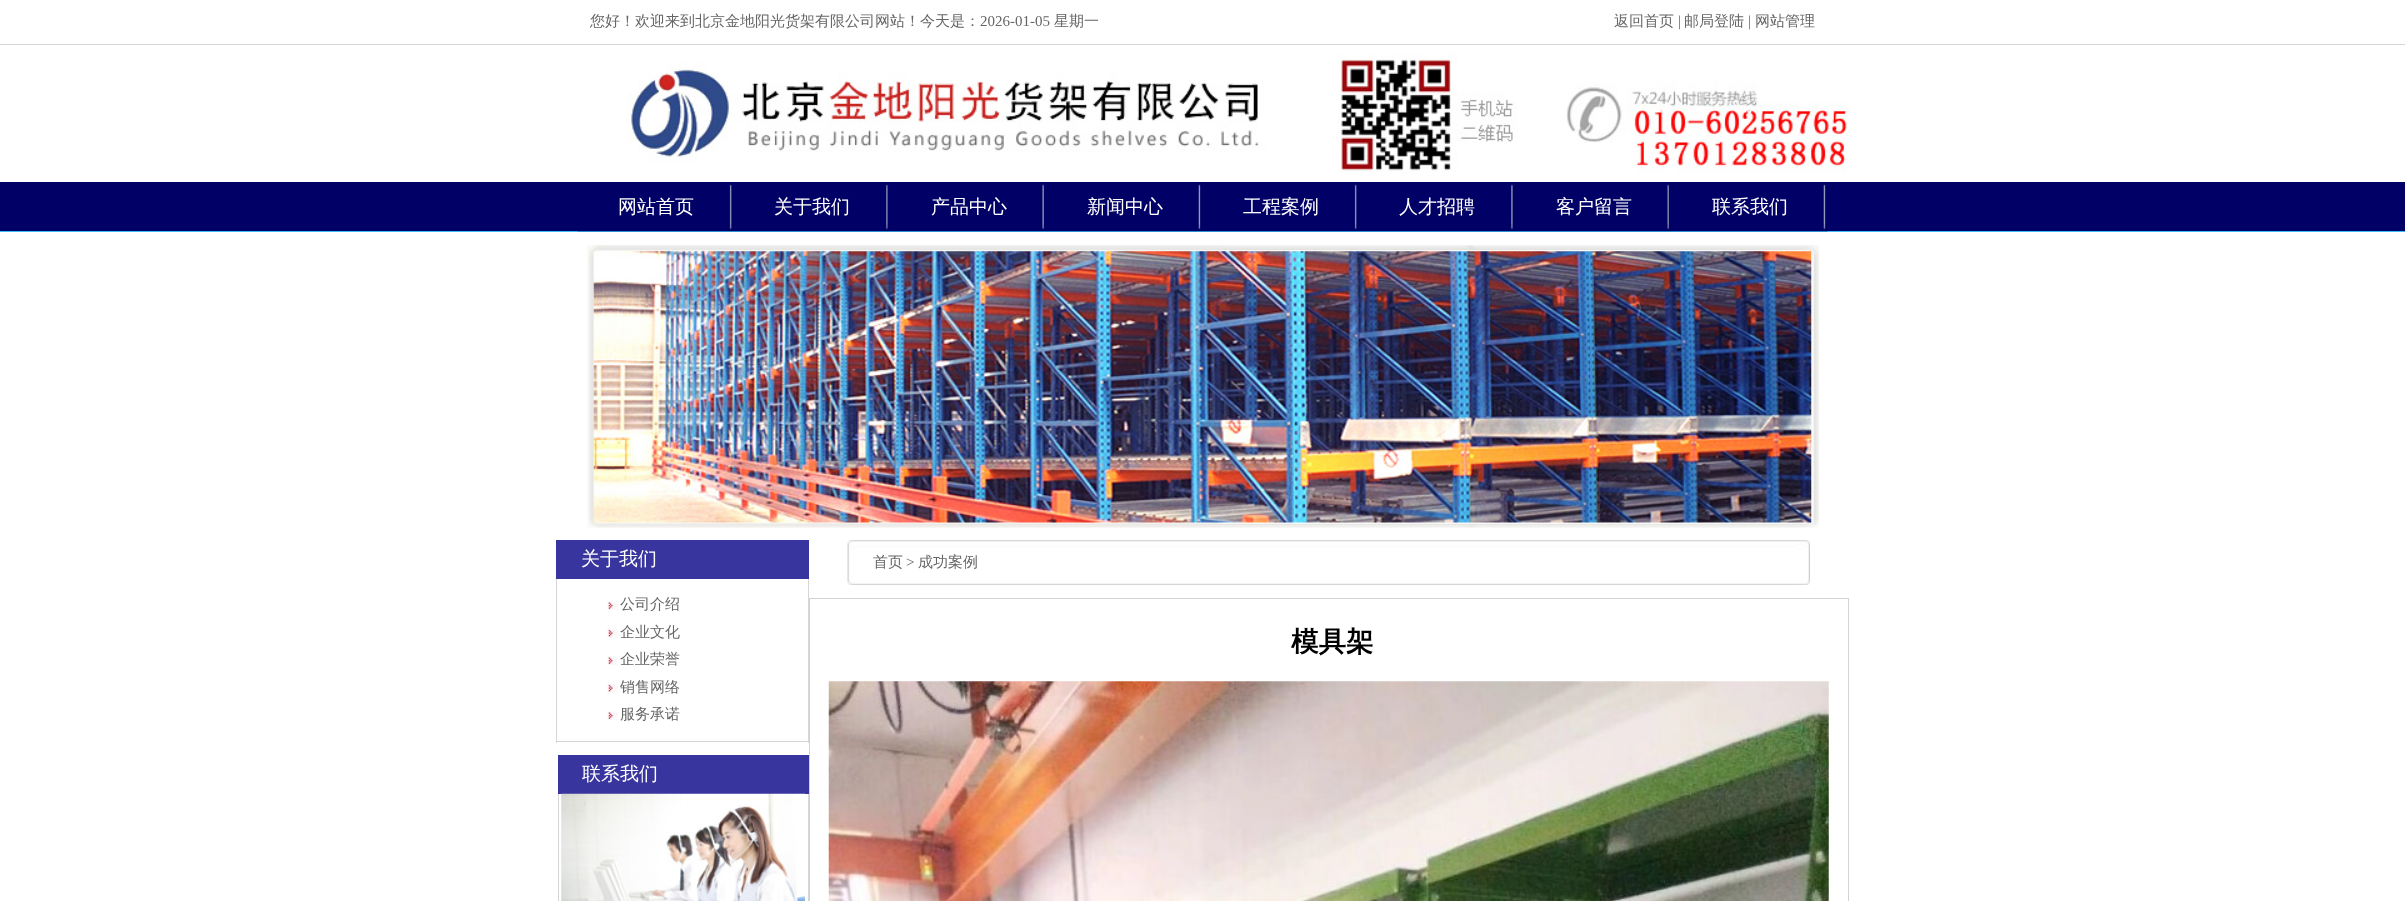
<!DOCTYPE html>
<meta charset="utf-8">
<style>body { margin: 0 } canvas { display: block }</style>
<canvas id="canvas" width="2405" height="901"></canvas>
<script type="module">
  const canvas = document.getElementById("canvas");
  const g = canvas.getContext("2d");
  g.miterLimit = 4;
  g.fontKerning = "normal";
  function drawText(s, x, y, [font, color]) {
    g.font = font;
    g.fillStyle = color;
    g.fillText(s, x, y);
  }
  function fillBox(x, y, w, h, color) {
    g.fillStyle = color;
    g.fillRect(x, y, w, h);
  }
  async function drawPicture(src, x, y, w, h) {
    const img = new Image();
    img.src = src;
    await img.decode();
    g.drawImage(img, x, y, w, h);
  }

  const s1 = ["500 15px WenQuanYi Zen Hei", "#666666"];
  const s2 = ["15px Liberation Serif", "#666666"];
  const s3 = ["500 19px WenQuanYi Zen Hei", "#FFFFFF"];
  const s4 = ["bold 27.5px WenQuanYi Zen Hei", "#000000"];

  fillBox(0, 0, 2405, 901, "#FFFFFF");
  drawText("您好！欢迎来到北京金地阳光货架有限公司网站！今天是：", 590, 26, s1);
  drawText("2026-01-05", 980, 26, s2);
  drawText("星期一", 1054, 26, s1);
  drawText("返回首页", 1614, 26, s1);
  drawText("|", 1678, 26, s2);
  drawText("邮局登陆", 1684, 26, s1);
  drawText("|", 1748, 26, s2);
  drawText("网站管理", 1755, 26, s1);
  fillBox(0, 44, 2405, 1, "#D6D6D6");
  await drawPicture("pic1.png", 628, 52, 1219, 121);
  fillBox(0, 182, 2405, 49, "#010066");
  fillBox(0, 231, 2405, 1, "#3BBDF9");
  await drawPicture("pic2.png", 577, 184, 157, 48);
  drawText("网站首页", 618, 213, s3);
  await drawPicture("pic3.png", 733, 184, 157, 48);
  drawText("关于我们", 774, 213, s3);
  await drawPicture("pic4.png", 890, 184, 157, 48);
  drawText("产品中心", 931, 213, s3);
  await drawPicture("pic5.png", 1046, 184, 157, 48);
  drawText("新闻中心", 1087, 213, s3);
  await drawPicture("pic6.png", 1202, 184, 157, 48);
  drawText("工程案例", 1243, 213, s3);
  await drawPicture("pic7.png", 1358, 184, 157, 48);
  drawText("人才招聘", 1399, 213, s3);
  await drawPicture("pic8.png", 1515, 184, 157, 48);
  drawText("客户留言", 1556, 213, s3);
  await drawPicture("pic5.png", 1671, 184, 157, 48);
  drawText("联系我们", 1712, 213, s3);
  await drawPicture("pic9.png", 587, 245, 1232, 283);
  await drawPicture("pic10.png", 593, 251, 1219, 272);
  fillBox(556, 540, 253, 39, "#38359E");
  drawText("关于我们", 581, 565, s3);
  fillBox(808, 579, 1, 164, "#D6D6D6");
  fillBox(556, 741, 253, 1, "#D6D6D6");
  fillBox(556, 579, 1, 164, "#D6D6D6");
  await drawPicture("pic11.png", 607, 601, 11, 9);
  drawText("公司介绍", 620, 609, s1);
  await drawPicture("pic12.png", 607, 629, 11, 9);
  drawText("企业文化", 620, 637, s1);
  await drawPicture("pic11.png", 607, 656, 11, 9);
  drawText("企业荣誉", 620, 664, s1);
  await drawPicture("pic12.png", 607, 684, 11, 9);
  drawText("销售网络", 620, 692, s1);
  await drawPicture("pic11.png", 607, 711, 11, 9);
  drawText("服务承诺", 620, 719, s1);
  fillBox(558, 755, 251, 39, "#38359E");
  drawText("联系我们", 582, 780, s3);
  fillBox(808, 794, 1, 107, "#D6D6D6");
  fillBox(558, 794, 1, 107, "#D6D6D6");
  await drawPicture("pic13.png", 561, 793, 244, 108);
  await drawPicture("pic14.png", 847, 540, 963, 45);
  drawText("首页", 873, 567, s1);
  drawText(">", 906, 567, s2);
  drawText("成功案例", 918, 567, s1);
  g.strokeStyle = "#D3D3D3";
  g.strokeRect(809.5, 598.5, 1039, 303);
  drawText("模具架", 1291, 651, s4);
  await drawPicture("pic15.png", 828, 681, 1001, 220);
</script>
